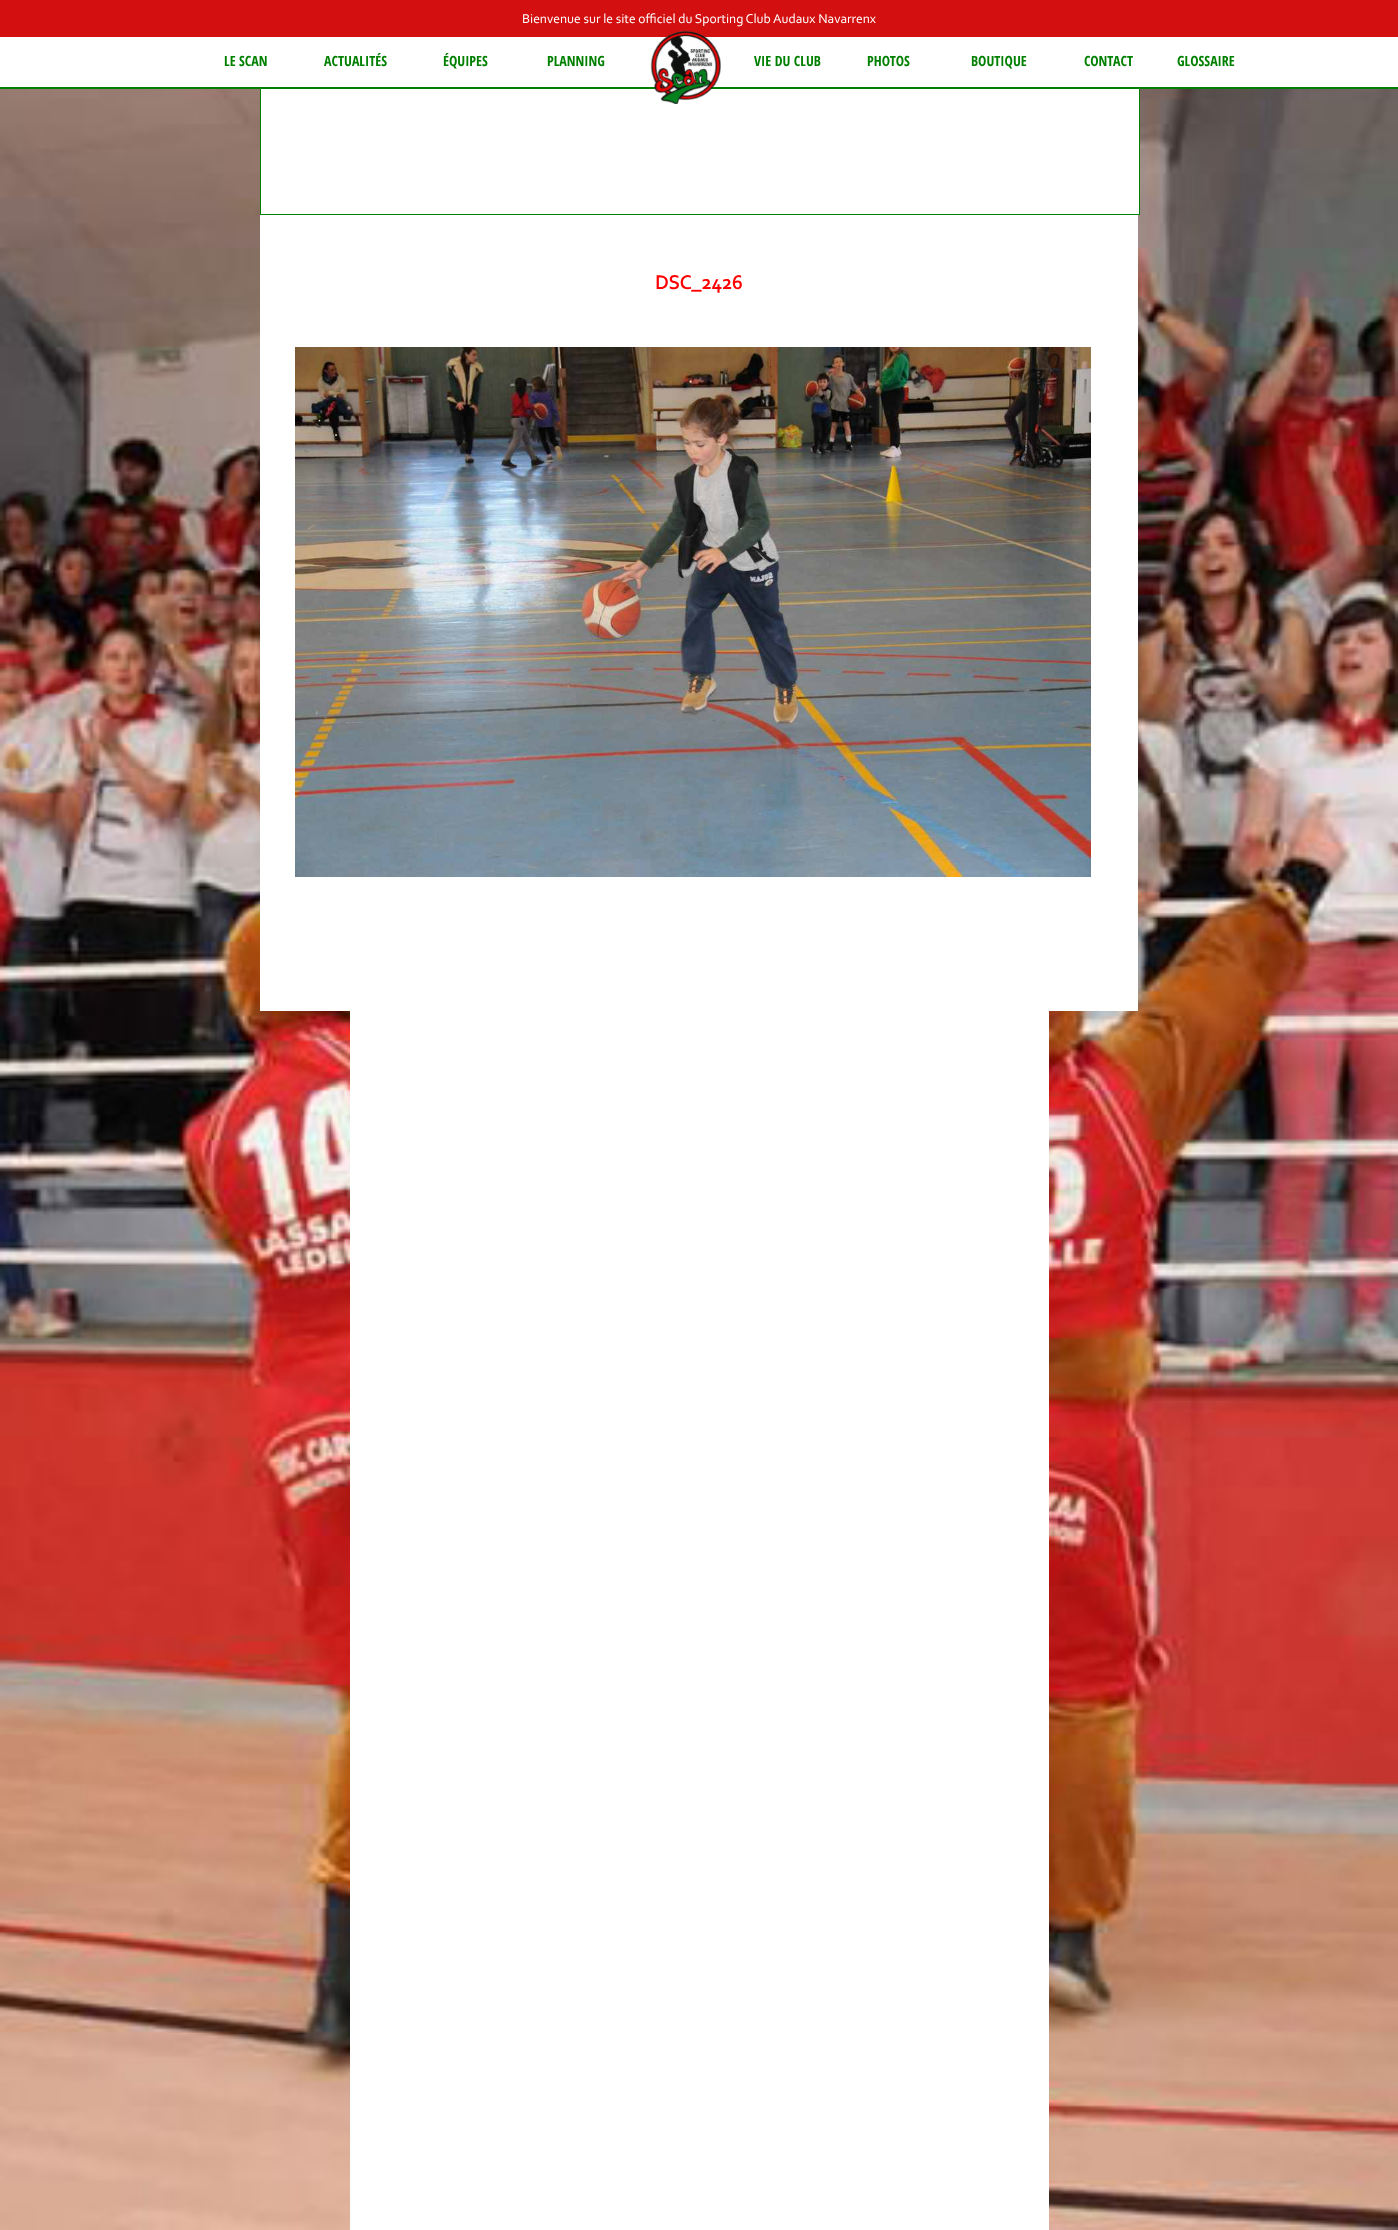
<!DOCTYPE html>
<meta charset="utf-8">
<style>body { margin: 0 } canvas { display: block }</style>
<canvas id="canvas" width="1398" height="2230"></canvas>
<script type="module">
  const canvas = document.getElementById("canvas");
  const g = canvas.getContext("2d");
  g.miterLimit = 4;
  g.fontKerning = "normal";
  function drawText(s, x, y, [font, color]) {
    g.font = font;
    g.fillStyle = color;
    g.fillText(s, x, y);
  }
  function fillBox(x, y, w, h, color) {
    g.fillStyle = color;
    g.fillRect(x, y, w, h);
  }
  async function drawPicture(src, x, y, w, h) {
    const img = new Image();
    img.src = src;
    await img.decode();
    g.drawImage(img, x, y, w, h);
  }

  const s1 = ["13.5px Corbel", "#FFFFFF"];
  const s2 = ["bold 14px Open Sans Condensed", "#008000"];
  const s3 = ["bold 20px Corbel", "#FF0000"];

  fillBox(0, 0, 1398, 2230, "#FFFFFF");
  fillBox(0, 0, 1398, 37, "#D3100F");
  drawText("Bienvenue sur le site officiel du Sporting Club Audaux Navarrenx", 522, 23, s1);
  await drawPicture("pic2.png", 0, 89, 350, 2141);
  await drawPicture("pic4.png", 1049, 89, 349, 2141);
  fillBox(261, 89, 878, 125, "#FFFFFF");
  g.strokeStyle = "#008000";
  g.strokeRect(260.5, 63.5, 879, 151);
  fillBox(260, 63, 880, 24, "#FFFFFF");
  drawText("LE SCAN", 224, 66, s2);
  drawText("ACTUALITÉS", 324, 66, s2);
  drawText("ÉQUIPES", 443, 66, s2);
  drawText("PLANNING", 547, 66, s2);
  fillBox(0, 87, 1398, 2, "#008000");
  await drawPicture("pic1.png", 650, 31, 71, 73);
  drawText("VIE DU CLUB", 754, 66, s2);
  drawText("PHOTOS", 867, 66, s2);
  drawText("BOUTIQUE", 971, 66, s2);
  drawText("CONTACT", 1084, 66, s2);
  drawText("GLOSSAIRE", 1177, 66, s2);
  fillBox(260, 215, 878, 796, "#FFFFFF");
  drawText("DSC_2426", 655, 289, s3);
  await drawPicture("pic3.png", 295, 347, 796, 530);
</script>
